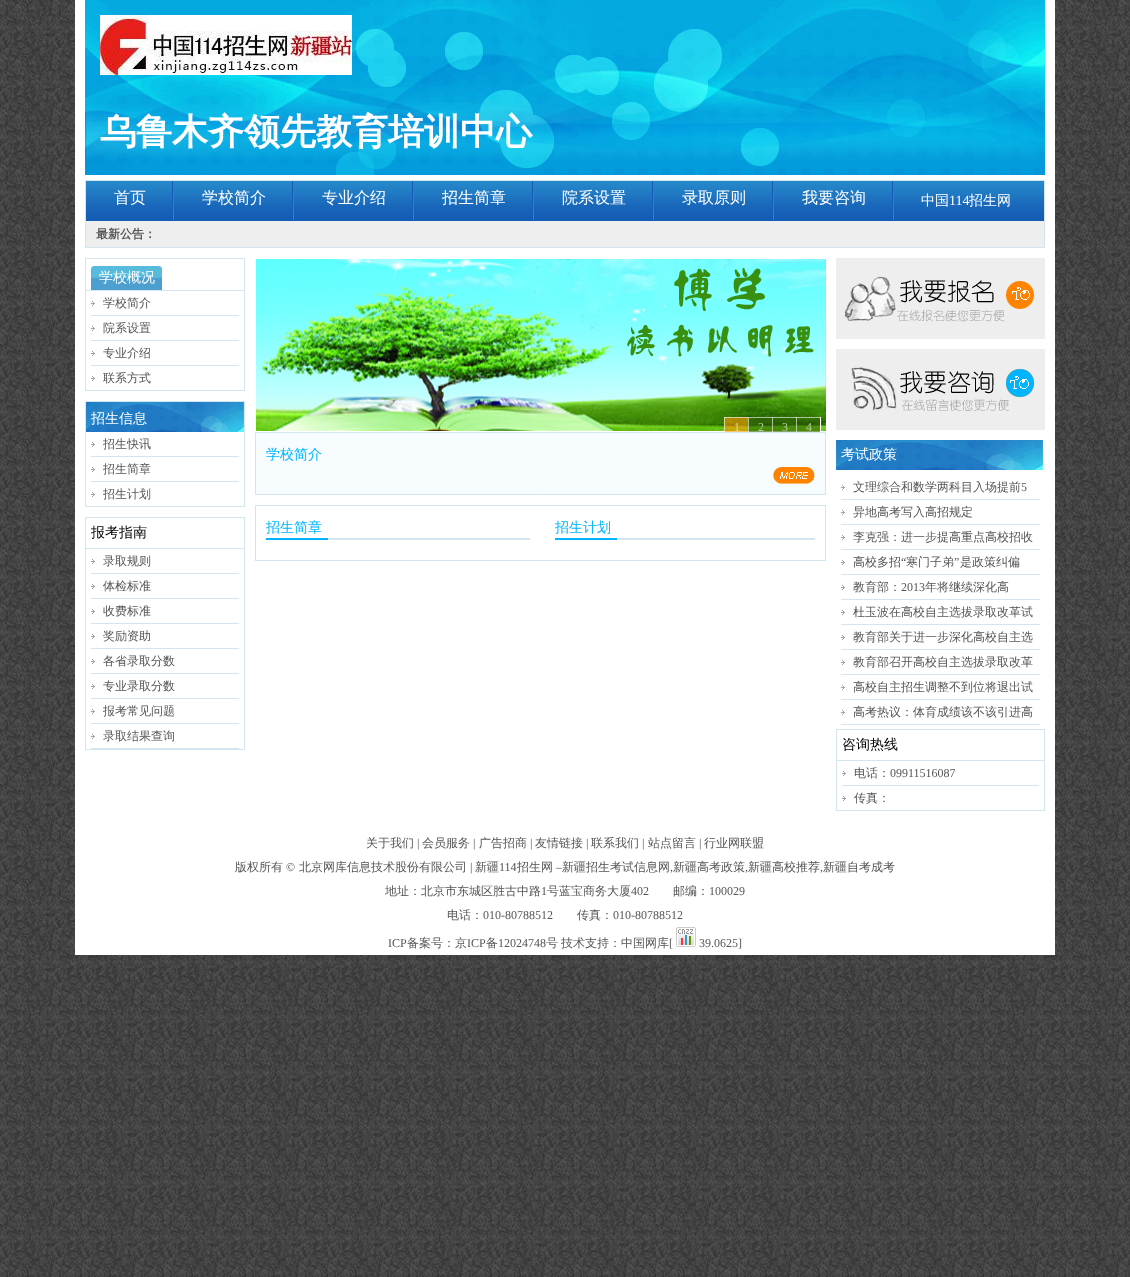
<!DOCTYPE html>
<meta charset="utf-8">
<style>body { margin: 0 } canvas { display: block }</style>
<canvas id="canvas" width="1130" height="1277"></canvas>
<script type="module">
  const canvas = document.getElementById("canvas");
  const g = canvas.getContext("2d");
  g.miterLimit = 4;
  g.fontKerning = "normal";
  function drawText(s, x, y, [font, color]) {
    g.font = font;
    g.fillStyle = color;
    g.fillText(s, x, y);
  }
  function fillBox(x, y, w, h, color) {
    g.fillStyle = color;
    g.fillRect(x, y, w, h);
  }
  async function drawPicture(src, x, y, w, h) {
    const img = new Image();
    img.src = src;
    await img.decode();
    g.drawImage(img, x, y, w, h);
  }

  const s1 = ["bold 36px WenQuanYi Zen Hei", "#FFFFFF"];
  const s2 = ["500 16px WenQuanYi Zen Hei", "#FFFFFF"];
  const s3 = ["500 14px WenQuanYi Zen Hei", "#FFFFFF"];
  const s4 = ["14px Liberation Serif", "#FFFFFF"];
  const s5 = ["bold 12px WenQuanYi Zen Hei", "#555555"];
  const s6 = ["500 12px WenQuanYi Zen Hei", "#555555"];
  const s7 = ["500 14px WenQuanYi Zen Hei", "#000000"];
  const s8 = ["12px Liberation Serif", "#E3D69C"];
  const s9 = ["12px Liberation Serif", "#B4CD9D"];
  const s10 = ["500 14px WenQuanYi Zen Hei", "#00B4FF"];
  const s11 = ["12px Liberation Serif", "#555555"];

  fillBox(0, 0, 1130, 1277, "#FFFFFF");
  await drawPicture("pic1.png", 0, 0, 1130, 1277);
  fillBox(75, 0, 980, 955, "#FFFFFF");
  await drawPicture("pic2.png", 85, 0, 960, 175);
  await drawPicture("pic3.png", 100, 15, 252, 60);
  drawText("乌鲁木齐领先教育培训中心", 100, 144, s1);
  g.strokeStyle = "#D3E5ED";
  g.strokeRect(85.5, 180.5, 959, 67);
  await drawPicture("pic4.png", 86, 181, 958, 40);
  await drawPicture("pic5.png", 172, 181, 2, 39);
  drawText("首页", 114, 203, s2);
  await drawPicture("pic5.png", 292, 181, 2, 39);
  drawText("学校简介", 202, 203, s2);
  await drawPicture("pic5.png", 412, 181, 2, 39);
  drawText("专业介绍", 322, 203, s2);
  await drawPicture("pic5.png", 532, 181, 2, 39);
  drawText("招生简章", 442, 203, s2);
  await drawPicture("pic5.png", 652, 181, 2, 39);
  drawText("院系设置", 562, 203, s2);
  await drawPicture("pic5.png", 772, 181, 2, 39);
  drawText("录取原则", 682, 203, s2);
  await drawPicture("pic5.png", 892, 181, 2, 39);
  drawText("我要咨询", 802, 203, s2);
  drawText("中国", 921, 205, s3);
  drawText("114", 949, 205, s4);
  drawText("招生网", 969, 205, s3);
  fillBox(86, 221, 958, 26, "#EEEEEE");
  drawText("最新公告：", 96, 238, s5);
  g.strokeRect(85.5, 258.5, 159, 132);
  fillBox(86, 290, 158, 1, "#D3E5ED");
  await drawPicture("pic6.png", 91, 266, 71, 24);
  drawText("学校概况", 99, 282, s3);
  await drawPicture("pic7.png", 91, 301, 4, 5);
  fillBox(91, 315, 148, 1, "#D3E5ED");
  drawText("学校简介", 103, 307, s6);
  await drawPicture("pic7.png", 91, 326, 4, 5);
  fillBox(91, 340, 148, 1, "#D3E5ED");
  drawText("院系设置", 103, 332, s6);
  await drawPicture("pic7.png", 91, 351, 4, 5);
  fillBox(91, 365, 148, 1, "#D3E5ED");
  drawText("专业介绍", 103, 357, s6);
  await drawPicture("pic7.png", 91, 376, 4, 5);
  drawText("联系方式", 103, 382, s6);
  g.strokeRect(85.5, 401.5, 159, 105);
  await drawPicture("pic8.png", 86, 402, 158, 30);
  drawText("招生信息", 91, 423, s3);
  await drawPicture("pic7.png", 91, 442, 4, 5);
  fillBox(91, 456, 148, 1, "#D3E5ED");
  drawText("招生快讯", 103, 448, s6);
  await drawPicture("pic7.png", 91, 467, 4, 5);
  fillBox(91, 481, 148, 1, "#D3E5ED");
  drawText("招生简章", 103, 473, s6);
  await drawPicture("pic7.png", 91, 492, 4, 5);
  drawText("招生计划", 103, 498, s6);
  g.strokeRect(85.5, 517.5, 159, 232);
  fillBox(86, 548, 158, 1, "#D3E5ED");
  drawText("报考指南", 91, 537, s7);
  await drawPicture("pic7.png", 91, 559, 4, 5);
  fillBox(91, 573, 148, 1, "#D3E5ED");
  drawText("录取规则", 103, 565, s6);
  await drawPicture("pic7.png", 91, 584, 4, 5);
  fillBox(91, 598, 148, 1, "#D3E5ED");
  drawText("体检标准", 103, 590, s6);
  await drawPicture("pic7.png", 91, 609, 4, 5);
  fillBox(91, 623, 148, 1, "#D3E5ED");
  drawText("收费标准", 103, 615, s6);
  await drawPicture("pic7.png", 91, 634, 4, 5);
  fillBox(91, 648, 148, 1, "#D3E5ED");
  drawText("奖励资助", 103, 640, s6);
  await drawPicture("pic7.png", 91, 659, 4, 5);
  fillBox(91, 673, 148, 1, "#D3E5ED");
  drawText("各省录取分数", 103, 665, s6);
  await drawPicture("pic7.png", 91, 684, 4, 5);
  fillBox(91, 698, 148, 1, "#D3E5ED");
  drawText("专业录取分数", 103, 690, s6);
  await drawPicture("pic7.png", 91, 709, 4, 5);
  fillBox(91, 723, 148, 1, "#D3E5ED");
  drawText("报考常见问题", 103, 715, s6);
  await drawPicture("pic7.png", 91, 734, 4, 5);
  fillBox(91, 748, 148, 1, "#D3E5ED");
  drawText("录取结果查询", 103, 740, s6);
  await drawPicture("pic9.png", 256, 259, 570, 172);
  fillBox(820, 417, 1, 15, "#FFFFFF");
  fillBox(724, 417, 24, 15, "rgba(255, 153, 0, 0.6)");
  fillBox(724, 417, 24, 1, "rgba(255, 255, 255, 0.6)");
  fillBox(724, 417, 1, 15, "rgba(255, 255, 255, 0.6)");
  drawText("1", 734, 431, s8);
  fillBox(748, 417, 24, 15, "rgba(51, 102, 0, 0.6)");
  fillBox(748, 417, 24, 1, "rgba(255, 255, 255, 0.6)");
  fillBox(748, 417, 1, 15, "rgba(255, 255, 255, 0.6)");
  drawText("2", 758, 431, s9);
  fillBox(772, 417, 24, 15, "rgba(51, 102, 0, 0.6)");
  fillBox(772, 417, 24, 1, "rgba(255, 255, 255, 0.6)");
  fillBox(772, 417, 1, 15, "rgba(255, 255, 255, 0.6)");
  drawText("3", 782, 431, s9);
  fillBox(796, 417, 24, 15, "rgba(51, 102, 0, 0.6)");
  fillBox(796, 417, 24, 1, "rgba(255, 255, 255, 0.6)");
  fillBox(796, 417, 1, 15, "rgba(255, 255, 255, 0.6)");
  drawText("4", 806, 431, s9);
  g.fillStyle = "#F6FCFF";
  g.beginPath();
  g.rect(255.5, 432.5, 570, 62);
  g.fill();
  g.stroke();
  drawText("学校简介", 266, 459, s10);
  await drawPicture("pic10.png", 773, 467, 42, 17);
  g.strokeRect(255.5, 505.5, 570, 55);
  await drawPicture("pic11.png", 266, 538, 264, 2);
  drawText("招生简章", 266, 532, s10);
  await drawPicture("pic12.png", 555, 538, 260, 2);
  drawText("招生计划", 555, 532, s10);
  await drawPicture("pic13.png", 836, 258, 209, 81);
  await drawPicture("pic14.png", 836, 349, 209, 81);
  await drawPicture("pic15.png", 836, 440, 207, 30);
  drawText("考试政策", 841, 459, s3);
  await drawPicture("pic7.png", 841, 485, 4, 5);
  fillBox(841, 499, 199, 1, "#D3E5ED");
  drawText("文理综合和数学两科目入场提前", 853, 491, s6);
  drawText("5", 1021, 491, s11);
  await drawPicture("pic7.png", 841, 510, 4, 5);
  fillBox(841, 524, 199, 1, "#D3E5ED");
  drawText("异地高考写入高招规定", 853, 516, s6);
  await drawPicture("pic7.png", 841, 535, 4, 5);
  fillBox(841, 549, 199, 1, "#D3E5ED");
  drawText("李克强：进一步提高重点高校招收", 853, 541, s6);
  await drawPicture("pic7.png", 841, 560, 4, 5);
  fillBox(841, 574, 199, 1, "#D3E5ED");
  drawText("高校多招", 853, 566, s6);
  drawText("“", 901, 566, s11);
  drawText("寒门子弟", 906, 566, s6);
  drawText("”", 954, 566, s11);
  drawText("是政策纠偏", 960, 566, s6);
  await drawPicture("pic7.png", 841, 585, 4, 5);
  fillBox(841, 599, 199, 1, "#D3E5ED");
  drawText("教育部：", 853, 591, s6);
  drawText("2013", 901, 591, s11);
  drawText("年将继续深化高", 925, 591, s6);
  await drawPicture("pic7.png", 841, 610, 4, 5);
  fillBox(841, 624, 199, 1, "#D3E5ED");
  drawText("杜玉波在高校自主选拔录取改革试", 853, 616, s6);
  await drawPicture("pic7.png", 841, 635, 4, 5);
  fillBox(841, 649, 199, 1, "#D3E5ED");
  drawText("教育部关于进一步深化高校自主选", 853, 641, s6);
  await drawPicture("pic7.png", 841, 660, 4, 5);
  fillBox(841, 674, 199, 1, "#D3E5ED");
  drawText("教育部召开高校自主选拔录取改革", 853, 666, s6);
  await drawPicture("pic7.png", 841, 685, 4, 5);
  fillBox(841, 699, 199, 1, "#D3E5ED");
  drawText("高校自主招生调整不到位将退出试", 853, 691, s6);
  await drawPicture("pic7.png", 841, 710, 4, 5);
  fillBox(841, 724, 199, 1, "#D3E5ED");
  drawText("高考热议：体育成绩该不该引进高", 853, 716, s6);
  g.strokeRect(836.5, 729.5, 208, 81);
  fillBox(837, 760, 207, 1, "#D3E5ED");
  drawText("咨询热线", 842, 749, s7);
  await drawPicture("pic7.png", 842, 771, 4, 5);
  fillBox(842, 785, 197, 1, "#D3E5ED");
  drawText("电话：", 854, 777, s6);
  drawText("09911516087", 890, 777, s11);
  await drawPicture("pic7.png", 842, 796, 4, 5);
  drawText("传真：", 854, 802, s6);
  drawText("关于我们", 366, 847, s6);
  drawText("|", 417, 847, s11);
  drawText("会员服务", 422, 847, s6);
  drawText("|", 473, 847, s11);
  drawText("广告招商", 479, 847, s6);
  drawText("|", 530, 847, s11);
  drawText("友情链接", 535, 847, s6);
  drawText("|", 586, 847, s11);
  drawText("联系我们", 591, 847, s6);
  drawText("|", 642, 847, s11);
  drawText("站点留言", 648, 847, s6);
  drawText("|", 699, 847, s11);
  drawText("行业网联盟", 704, 847, s6);
  drawText("版权所有", 235, 871, s6);
  drawText("©", 286, 871, s11);
  drawText("北京网库信息技术股份有限公司", 299, 871, s6);
  drawText("|", 470, 871, s11);
  drawText("新疆", 475, 871, s6);
  drawText("114", 499, 871, s11);
  drawText("招生网", 517, 871, s6);
  drawText("–", 556, 871, s11);
  drawText("新疆招生考试信息网", 562, 871, s6);
  drawText("新疆高考政策", 673, 871, s6);
  drawText("新疆高校推荐", 748, 871, s6);
  drawText("新疆自考成考", 823, 871, s6);
  drawText(",", 670, 871, s11);
  drawText(",", 745, 871, s11);
  drawText(",", 820, 871, s11);
  drawText("地址：北京市东城区胜古中路", 385, 895, s6);
  drawText("1", 541, 895, s11);
  drawText("号蓝宝商务大厦", 547, 895, s6);
  drawText("402", 631, 895, s11);
  drawText("邮编：", 673, 895, s6);
  drawText("100029", 709, 895, s11);
  drawText("电话：", 447, 919, s6);
  drawText("010-80788512", 483, 919, s11);
  drawText("传真：", 577, 919, s6);
  drawText("010-80788512", 613, 919, s11);
  drawText("ICP", 388, 947, s11);
  drawText("备案号：京", 407, 947, s6);
  drawText("ICP", 467, 947, s11);
  drawText("备", 486, 947, s6);
  drawText("12024748", 498, 947, s11);
  drawText("号", 546, 947, s6);
  drawText("技术支持：中国网库", 561, 947, s6);
  drawText("[", 669, 947, s11);
  await drawPicture("pic16.png", 676, 927, 20, 20);
  drawText("39.0625]", 699, 947, s11);
</script>
